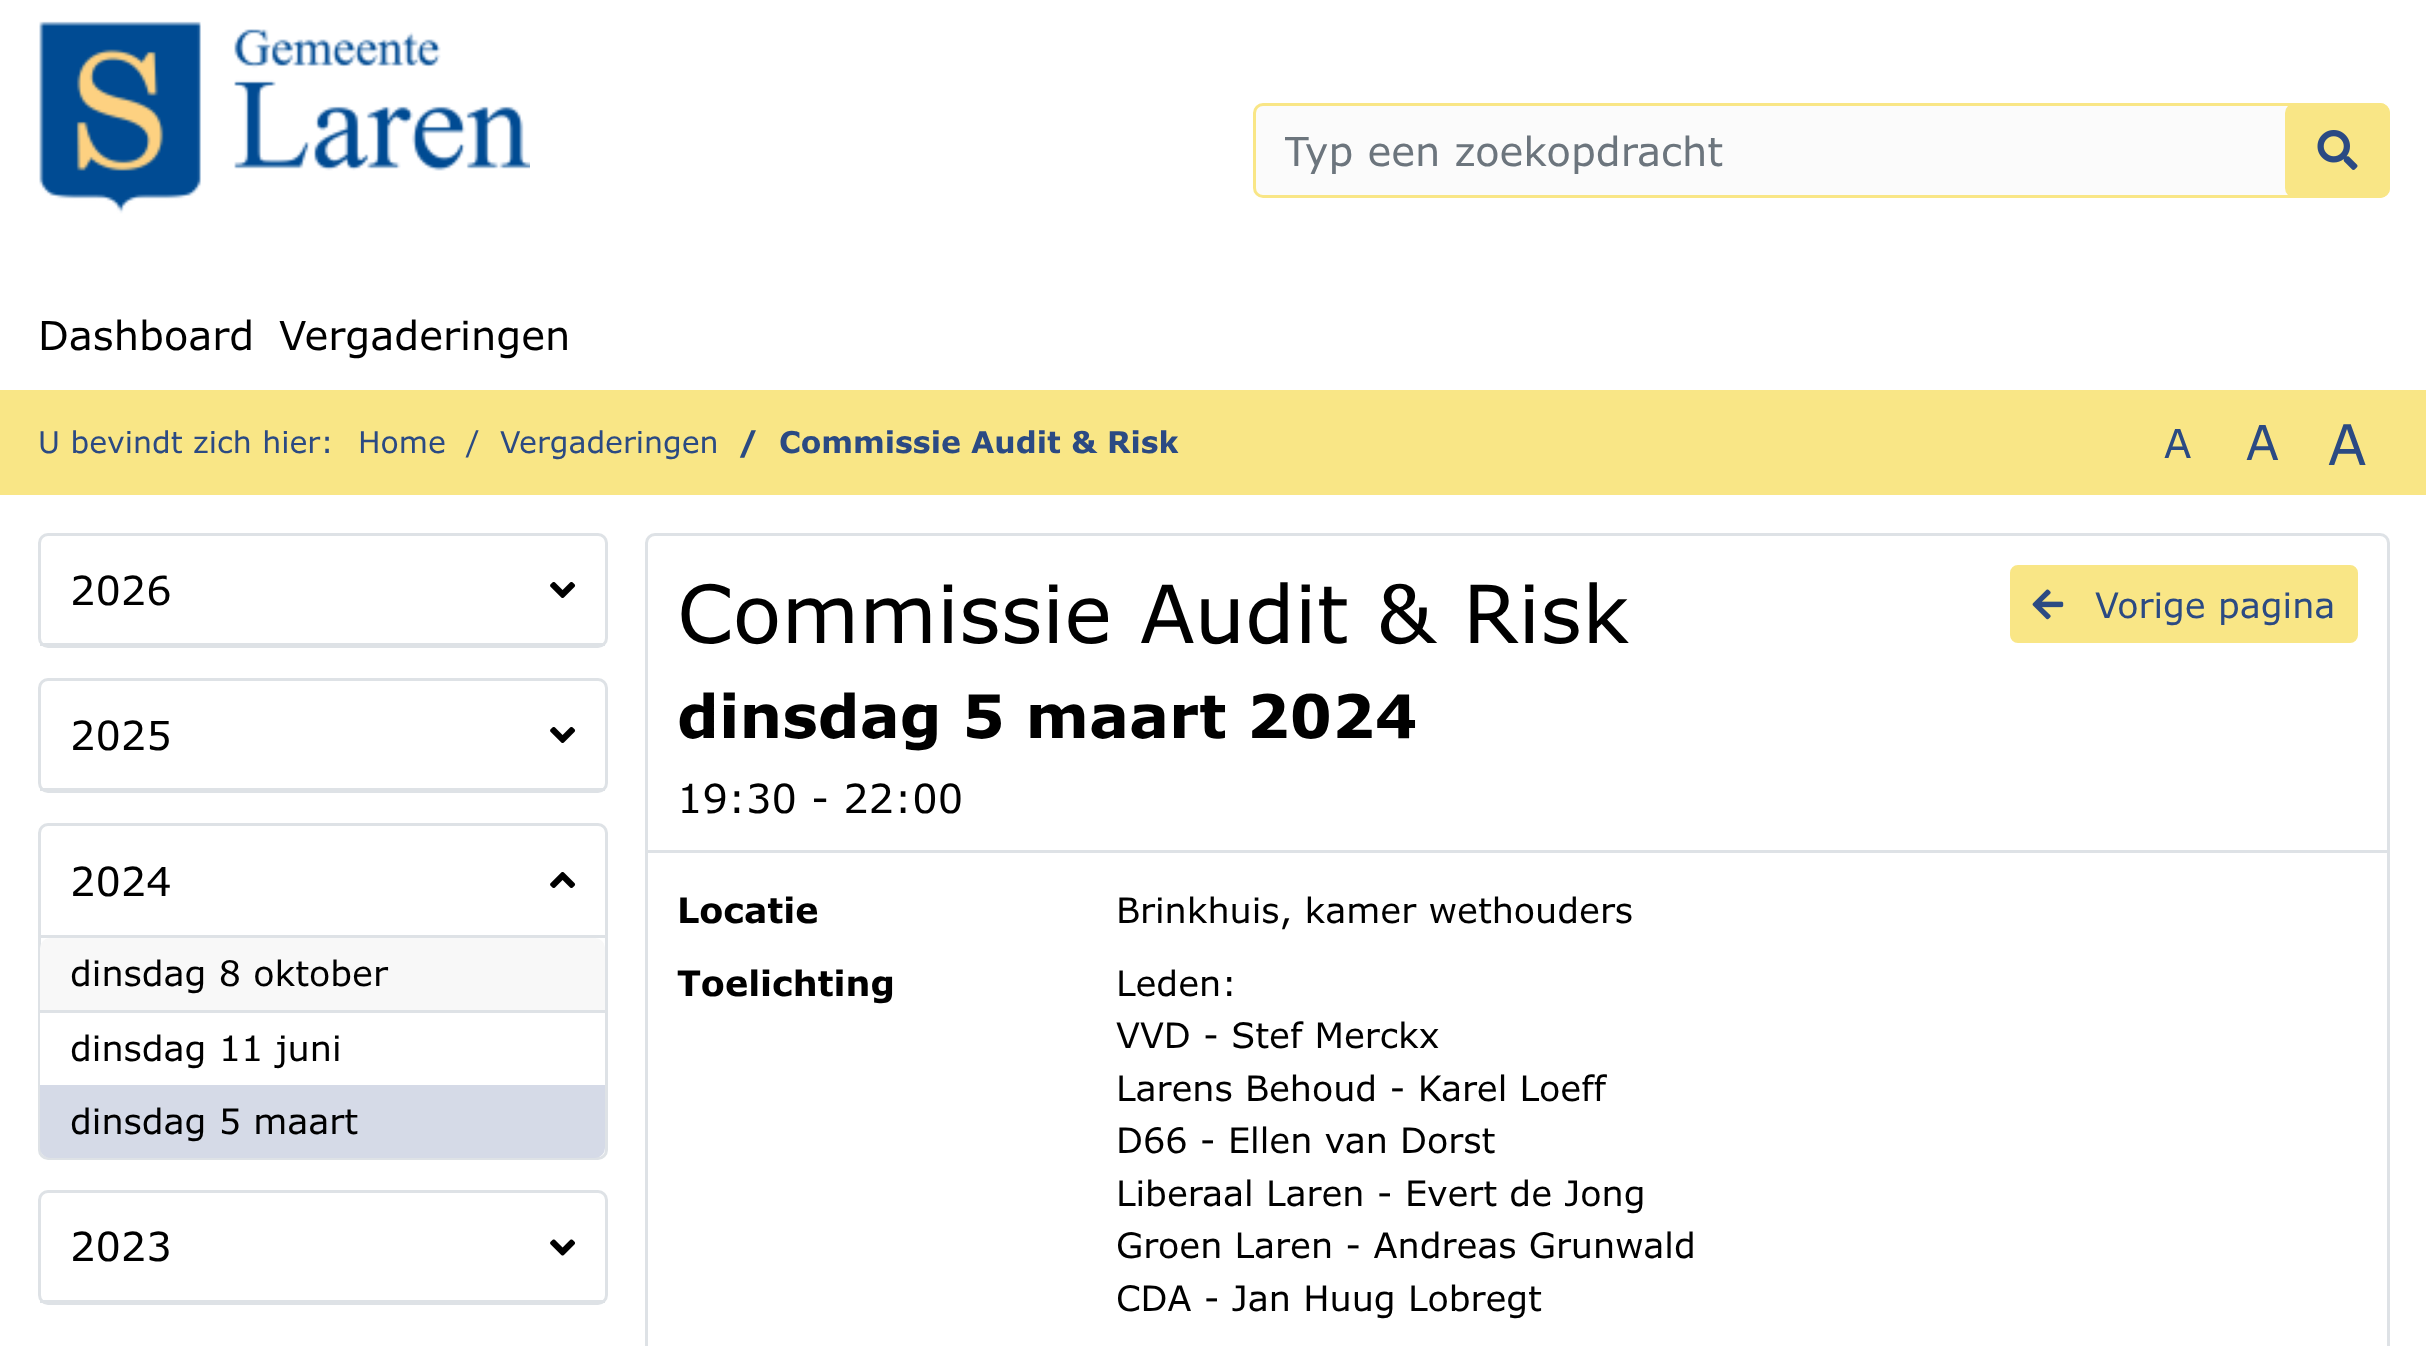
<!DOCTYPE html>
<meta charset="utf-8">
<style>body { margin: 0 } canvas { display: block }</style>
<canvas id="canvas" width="2426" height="1346"></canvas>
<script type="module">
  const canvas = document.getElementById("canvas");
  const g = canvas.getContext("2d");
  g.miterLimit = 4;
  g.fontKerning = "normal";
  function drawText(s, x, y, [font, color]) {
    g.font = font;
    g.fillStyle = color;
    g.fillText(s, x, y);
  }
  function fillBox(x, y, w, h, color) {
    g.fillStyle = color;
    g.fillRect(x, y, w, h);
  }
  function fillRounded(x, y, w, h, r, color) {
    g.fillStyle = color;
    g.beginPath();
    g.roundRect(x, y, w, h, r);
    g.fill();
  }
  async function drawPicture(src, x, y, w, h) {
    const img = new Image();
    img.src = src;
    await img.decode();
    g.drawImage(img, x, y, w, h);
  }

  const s1 = ["40px Verdana", "#6C757D"];
  const s2 = ["40px Verdana", "#000000"];
  const s3 = ["30px Verdana", "#2B4A83"];
  const s4 = ["bold 30px Verdana", "#2B4A83"];
  const s5 = ["40px Verdana", "#2B4A83"];
  const s6 = ["48px Verdana", "#2B4A83"];
  const s7 = ["56px Verdana", "#2B4A83"];
  const s8 = ["35px Verdana", "#000000"];
  const s9 = ["80px Verdana", "#000000"];
  const s10 = ["35px Verdana", "#2B4A83"];
  const s11 = ["bold 60px Verdana", "#000000"];
  const s12 = ["bold 35px Verdana", "#000000"];

  fillBox(0, 0, 2426, 1346, "#FFFFFF");
  await drawPicture("pic1.png", 39, 21, 491, 193);
  g.fillStyle = "#FBFBFB";
  g.beginPath();
  g.roundRect(1254.5, 104.5, 1134, 92, 8.5);
  g.fill();
  g.strokeStyle = "#F9E686";
  g.lineWidth = 3;
  g.stroke();
  g.save();
  g.beginPath();
  g.rect(1285, 128, 1073, 47);
  g.clip();
  drawText("Typ een zoekopdracht", 1284, 166, s1);
  g.restore();
  fillRounded(2285, 103, 105, 95, 10, "#F9E686");
  await drawPicture("pic2.png", 2317, 130, 41, 40);
  drawText("Dashboard", 38, 350, s2);
  drawText("Vergaderingen", 279, 350, s2);
  fillBox(0, 390, 2426, 105, "#F9E686");
  drawText("U bevindt zich hier:", 38, 453, s3);
  drawText("Home", 358, 453, s3);
  drawText("/", 466, 453, s3);
  drawText("Vergaderingen", 500, 453, s3);
  drawText("/", 738, 453, s4);
  drawText("Commissie Audit & Risk", 779, 453, s4);
  drawText("A", 2164, 458, s5);
  drawText("A", 2246, 460, s6);
  drawText("A", 2328, 465, s7);
  g.beginPath();
  g.roundRect(39.5, 534.5, 567, 112, 8.5);
  g.strokeStyle = "#DEE2E6";
  g.stroke();
  fillBox(40, 643, 565, 3, "#DEE2E6");
  drawText("2026", 70, 605, s2);
  await drawPicture("pic3.png", 550, 582, 26, 16);
  g.beginPath();
  g.roundRect(39.5, 679.5, 567, 112, 8.5);
  g.stroke();
  fillBox(40, 788, 565, 3, "#DEE2E6");
  drawText("2025", 70, 750, s2);
  await drawPicture("pic3.png", 550, 727, 26, 16);
  g.beginPath();
  g.roundRect(39.5, 824.5, 567, 334, 8.5);
  g.stroke();
  fillBox(40, 935, 565, 3, "#DEE2E6");
  drawText("2024", 70, 896, s2);
  await drawPicture("pic4.png", 550, 872, 26, 16);
  g.fillStyle = "#F8F8F8";
  g.beginPath();
  g.roundRect(40, 938, 565, 75, [10, 10, 0, 0]);
  g.fill();
  fillBox(40, 1010, 565, 3, "#DEE2E6");
  drawText("dinsdag 8 oktober", 70, 986, s8);
  fillBox(40, 1013, 1, 72, "#FFFFFF");
  drawText("dinsdag 11 juni", 70, 1061, s8);
  g.fillStyle = "#D5DAE7";
  g.beginPath();
  g.roundRect(40, 1085, 565, 73, [0, 0, 10, 10]);
  g.fill();
  drawText("dinsdag 5 maart", 70, 1134, s8);
  g.beginPath();
  g.roundRect(39.5, 1191.5, 567, 112, 8.5);
  g.stroke();
  fillBox(40, 1300, 565, 3, "#DEE2E6");
  drawText("2023", 70, 1261, s2);
  await drawPicture("pic5.png", 550, 1239, 25, 17);
  g.beginPath();
  g.roundRect(646.5, 534.5, 1742, 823, 8.5);
  g.stroke();
  drawText("Commissie Audit & Risk", 677, 643, s9);
  g.fillStyle = "#F9E686";
  g.beginPath();
  g.roundRect(2011.5, 566.5, 345, 75, 6.5);
  g.fill();
  g.strokeStyle = "#F9E686";
  g.stroke();
  await drawPicture("pic6.png", 2032, 589, 32, 31);
  drawText("Vorige pagina", 2095, 618, s10);
  drawText("dinsdag 5 maart 2024", 677, 738, s11);
  drawText("19:30 - 22:00", 677, 813, s2);
  fillBox(648, 850, 1740, 3, "#DEE2E6");
  drawText("Locatie", 677, 923, s12);
  drawText("Brinkhuis, kamer wethouders", 1116, 923, s8);
  drawText("Toelichting", 677, 996, s12);
  drawText("Leden:", 1116, 996, s8);
  drawText("VVD - Stef Merckx", 1116, 1048, s8);
  drawText("Larens Behoud - Karel Loeff", 1116, 1101, s8);
  drawText("D66 - Ellen van Dorst", 1116, 1153, s8);
  drawText("Liberaal Laren - Evert de Jong", 1116, 1206, s8);
  drawText("Groen Laren - Andreas Grunwald", 1116, 1258, s8);
  drawText("CDA - Jan Huug Lobregt", 1116, 1311, s8);
</script>
